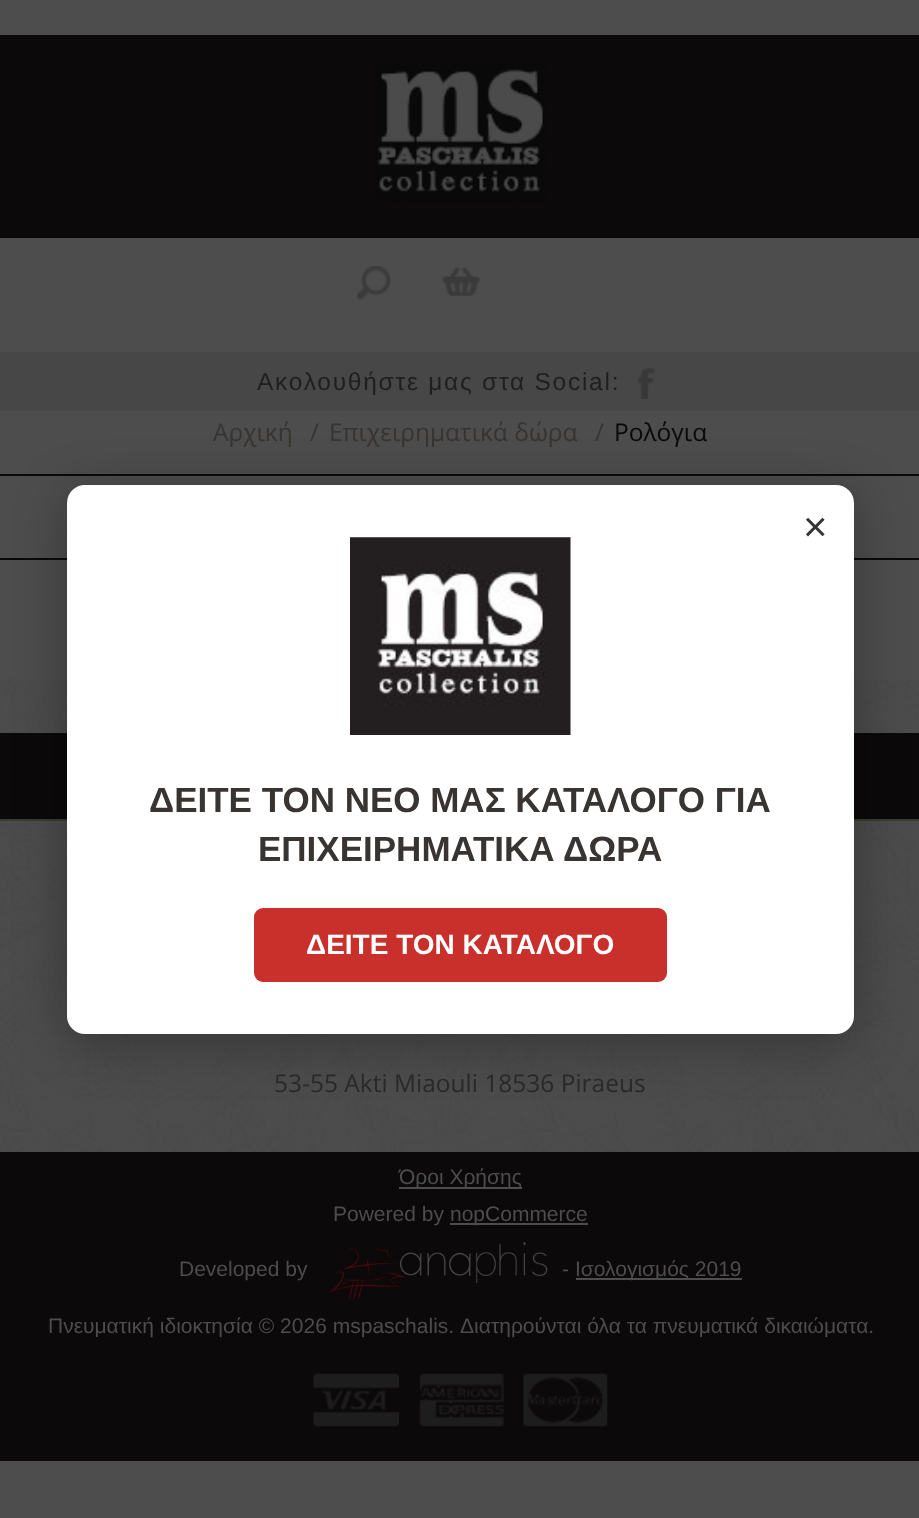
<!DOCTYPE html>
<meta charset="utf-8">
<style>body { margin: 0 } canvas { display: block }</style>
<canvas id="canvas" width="919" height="1518"></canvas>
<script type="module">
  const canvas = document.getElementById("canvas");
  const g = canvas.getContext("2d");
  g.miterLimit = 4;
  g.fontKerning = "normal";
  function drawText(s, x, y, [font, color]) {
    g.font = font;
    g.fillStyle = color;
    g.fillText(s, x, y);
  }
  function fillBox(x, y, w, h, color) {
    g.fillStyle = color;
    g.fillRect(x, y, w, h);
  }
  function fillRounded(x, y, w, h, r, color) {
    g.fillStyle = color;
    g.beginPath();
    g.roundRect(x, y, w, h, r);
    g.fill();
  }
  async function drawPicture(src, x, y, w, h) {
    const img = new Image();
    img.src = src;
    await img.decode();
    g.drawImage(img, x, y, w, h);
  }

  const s1 = ["24.5px Liberation Sans", "#1F1F1F"];
  const s2 = ["24.5px Open Sans", "#383431"];
  const s3 = ["24.5px Open Sans", "#0B090A"];
  const s4 = ["42px Liberation Sans", "#383431"];
  const s5 = ["bold 35px Liberation Sans", "#383431"];
  const s6 = ["bold 28px Liberation Sans", "#FFFFFF"];
  const s7 = ["24.5px Open Sans", "#292929"];
  const s8 = ["21px Liberation Sans", "#4D4D4D"];

  fillBox(0, 0, 919, 1518, "#4D4D4D");
  fillBox(0, 35, 919, 203, "#0B090A");
  await drawPicture("pic1.png", 377, 63, 169, 140);
  await drawPicture("pic2.png", 357, 266, 34, 34);
  await drawPicture("pic3.png", 442, 267, 38, 29);
  fillBox(0, 352, 919, 59, "#474747");
  g.letterSpacing = "1.75px";
  drawText("Ακολουθήστε μας στα Social:", 257, 390, s1);
  await drawPicture("pic4.png", 638, 368, 18, 31);
  g.letterSpacing = "0px";
  drawText("Αρχική", 213, 441, s2);
  drawText("/", 310, 441, s2);
  drawText("Επιχειρηματικά δώρα", 329, 441, s2);
  drawText("/", 595, 441, s2);
  drawText("Ρολόγια", 614, 441, s3);
  fillBox(0, 474, 919, 2, "#0B090A");
  fillBox(0, 558, 919, 2, "#0B090A");
  await drawPicture("pic6.png", 0, 679, 919, 473);
  fillBox(0, 733, 919, 86, "#0B090A");
  fillBox(0, 819, 919, 2, "#383E2B");
  g.fillStyle = "rgba(0, 0, 0, 0.3)";
  g.filter = "blur(26px)";
  g.beginPath();
  g.roundRect(67, 494, 787, 549, 18);
  g.fill();
  g.filter = "none";
  fillRounded(67, 485, 787, 549, 18, "#FFFFFF");
  drawText("×", 803, 541, s4);
  await drawPicture("pic5.png", 350, 537, 221, 198);
  drawText("ΔΕΙΤΕ ΤΟΝ ΝΕΟ ΜΑΣ ΚΑΤΑΛΟΓΟ ΓΙΑ", 149, 812, s5);
  drawText("ΕΠΙΧΕΙΡΗΜΑΤΙΚΑ ΔΩΡΑ", 258, 861, s5);
  fillRounded(254, 908, 413, 74, 9, "#C9302C");
  drawText("ΔΕΙΤΕ ΤΟΝ ΚΑΤΑΛΟΓΟ", 306, 954, s6);
  drawText("53-55 Akti Miaouli 18536 Piraeus", 274, 1092, s7);
  fillBox(0, 1152, 919, 309, "#0B090A");
  fillBox(399, 1187, 123, 2, "#4D4D4D");
  drawText("Όροι Χρήσης", 399, 1184, s8);
  drawText("Powered by", 333, 1221, s8);
  fillBox(450, 1223, 138, 2, "#4D4D4D");
  drawText("nopCommerce", 450, 1221, s8);
  drawText("Developed by", 179, 1276, s8);
  await drawPicture("pic7.png", 329, 1242, 219, 59);
  drawText("-", 562, 1276, s8);
  fillBox(576, 1278, 166, 2, "#4D4D4D");
  drawText("Ισολογισμός 2019", 575, 1276, s8);
  g.wordSpacing = "0.1px";
  drawText("Πνευματική ιδιοκτησία © 2026 mspaschalis. Διατηρούνται όλα τα πνευματικά δικαιώματα.", 48, 1333, s8);
  await drawPicture("pic8.png", 313, 1373, 86, 54);
  await drawPicture("pic9.png", 419, 1373, 85, 54);
  await drawPicture("pic10.png", 523, 1373, 85, 54);
</script>
